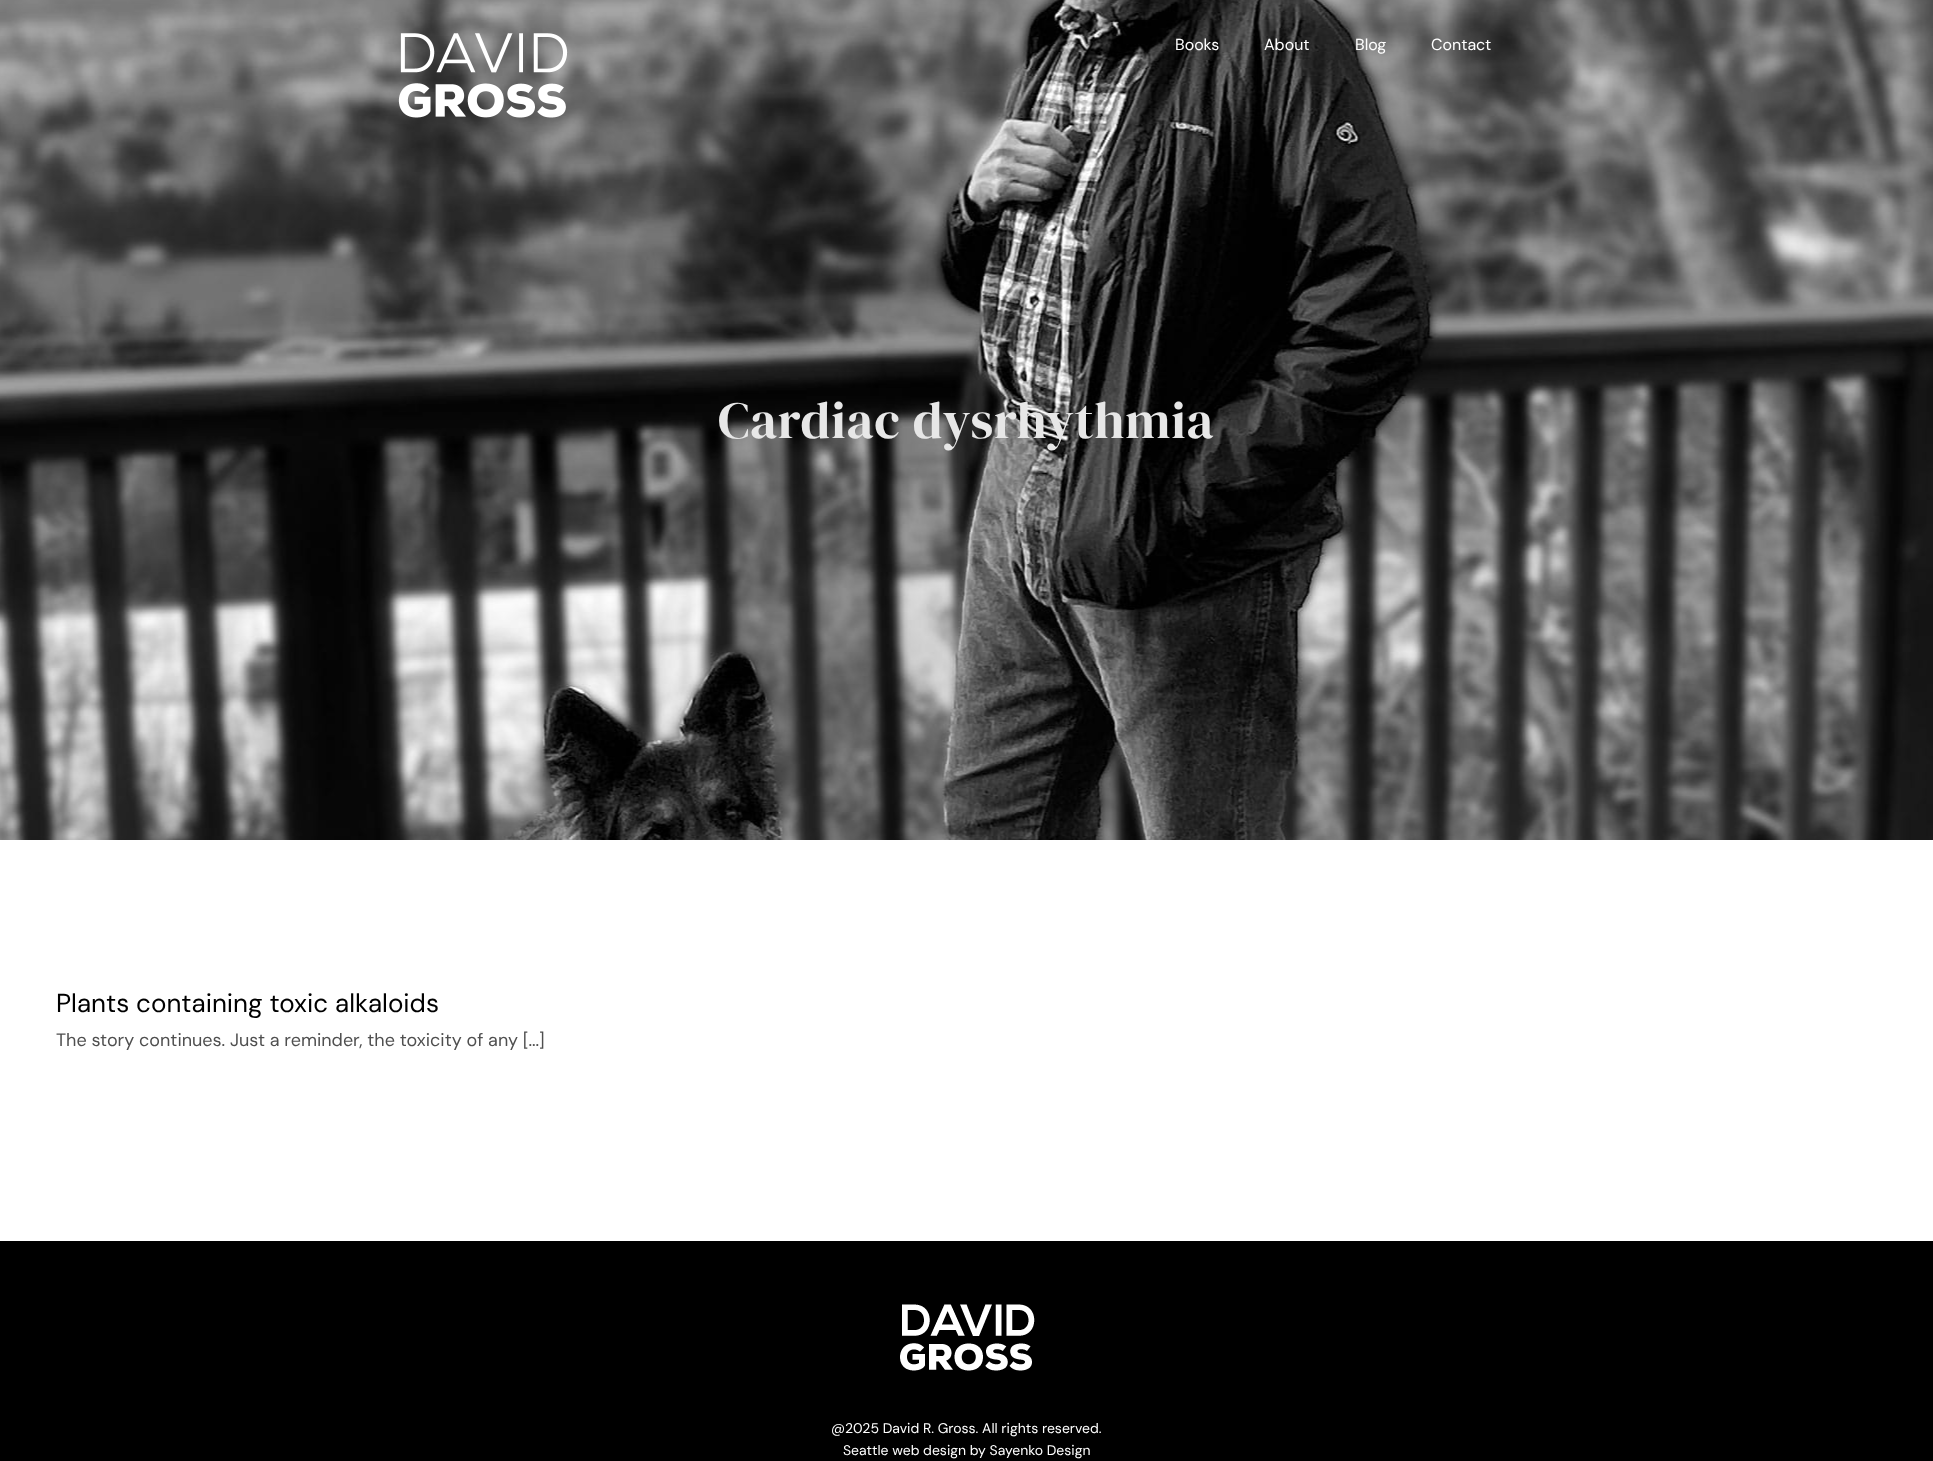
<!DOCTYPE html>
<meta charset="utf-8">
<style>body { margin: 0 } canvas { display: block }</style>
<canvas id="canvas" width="1933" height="1461"></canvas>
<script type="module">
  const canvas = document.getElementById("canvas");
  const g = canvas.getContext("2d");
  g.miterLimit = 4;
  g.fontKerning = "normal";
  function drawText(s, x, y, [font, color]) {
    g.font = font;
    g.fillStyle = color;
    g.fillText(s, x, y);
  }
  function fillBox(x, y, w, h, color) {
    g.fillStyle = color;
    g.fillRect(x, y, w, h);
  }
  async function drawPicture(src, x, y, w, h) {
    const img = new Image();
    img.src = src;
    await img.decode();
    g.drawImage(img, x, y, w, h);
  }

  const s1 = ["16px DM Sans", "#FFFFFF"];
  const s2 = ["52px DM Serif Display", "#E7E7E7"];
  const s3 = ["26px DM Sans", "#000000"];
  const s4 = ["18px DM Sans", "#4F4F4F"];
  const s5 = ["14px DM Sans", "#FFFFFF"];

  fillBox(0, 0, 1933, 1461, "#FFFFFF");
  await drawPicture("pic2.png", 0, 0, 1933, 840);
  await drawPicture("pic1.png", 398, 33, 170, 85);
  drawText("Books", 1175, 50, s1);
  drawText("About", 1264, 50, s1);
  drawText("Blog", 1355, 50, s1);
  drawText("Contact", 1431, 50, s1);
  g.letterSpacing = "0.75px";
  drawText("Cardiac dysrhythmia", 718, 438, s2);
  g.letterSpacing = "0px";
  drawText("Plants containing toxic alkaloids", 56, 1012, s3);
  drawText("The story continues. Just a reminder, the toxicity of any [...]", 56, 1046, s4);
  fillBox(0, 1241, 1933, 220, "#000000");
  await drawPicture("pic3.png", 900, 1304, 135, 67);
  drawText("@", 831, 1433, s5);
  drawText("2025 David R. Gross. All rights reserved.", 845, 1433, s5);
  drawText("Seattle web design by Sayenko Design", 843, 1455, s5);
</script>
